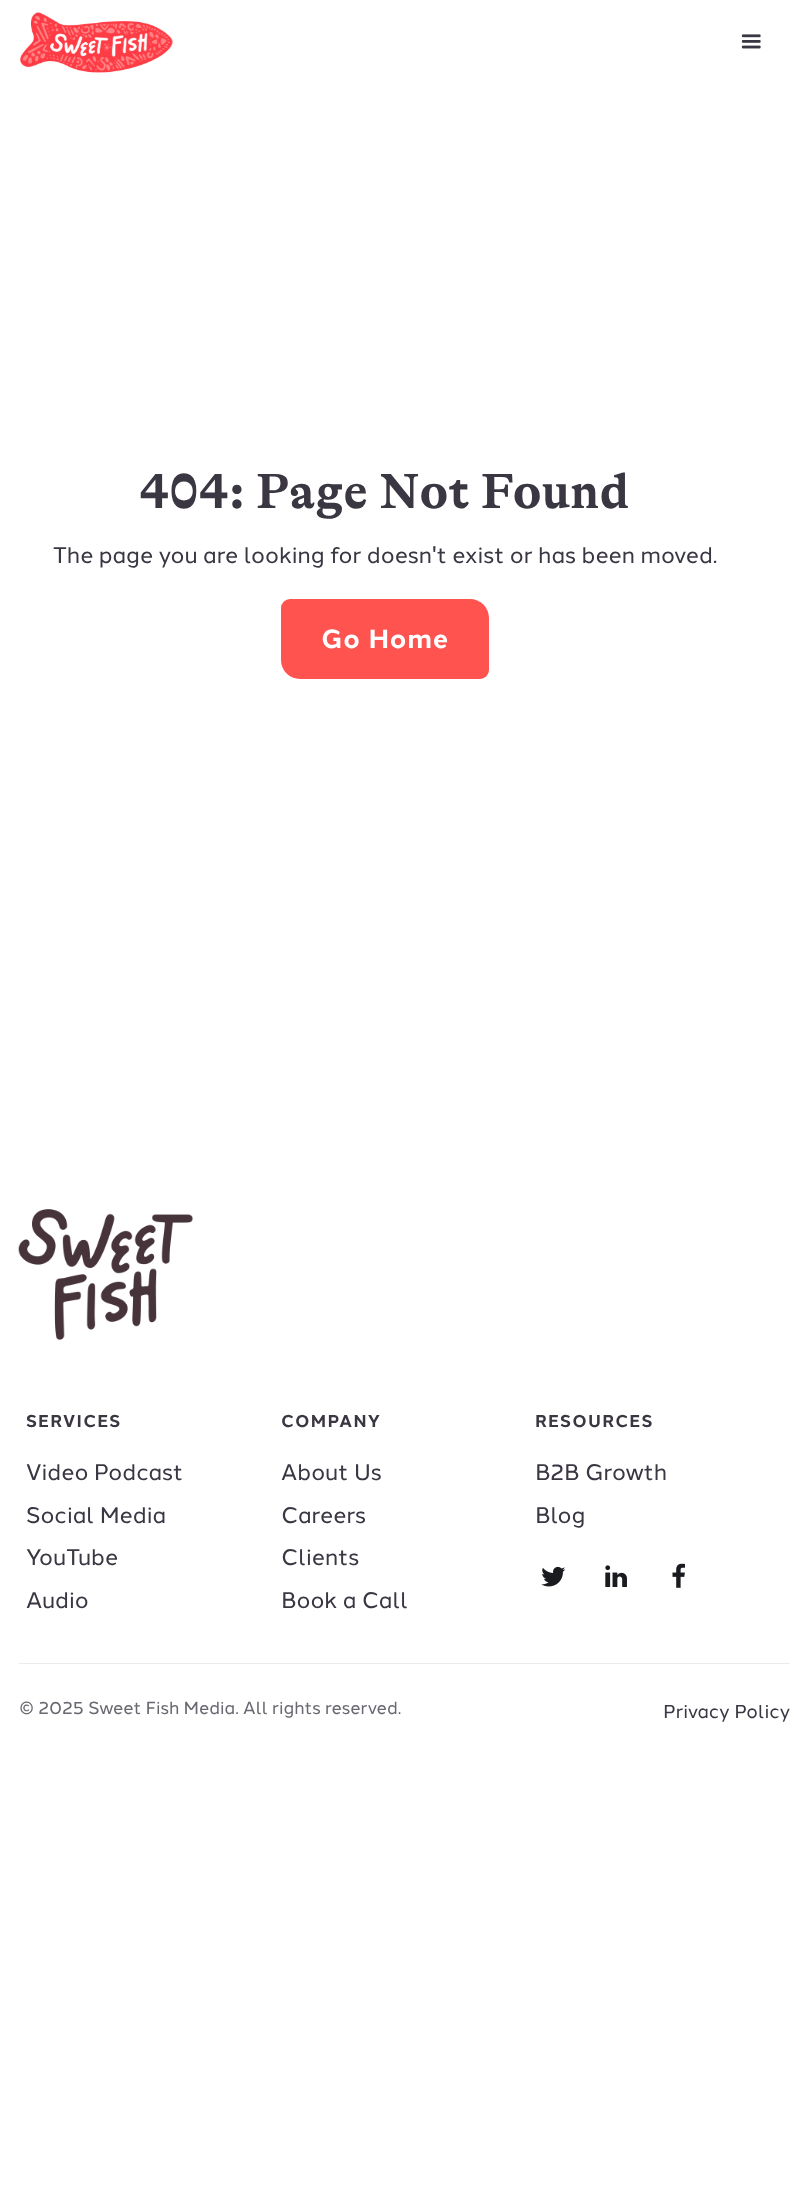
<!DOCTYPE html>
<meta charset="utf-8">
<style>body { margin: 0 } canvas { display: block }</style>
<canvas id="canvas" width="808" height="2204"></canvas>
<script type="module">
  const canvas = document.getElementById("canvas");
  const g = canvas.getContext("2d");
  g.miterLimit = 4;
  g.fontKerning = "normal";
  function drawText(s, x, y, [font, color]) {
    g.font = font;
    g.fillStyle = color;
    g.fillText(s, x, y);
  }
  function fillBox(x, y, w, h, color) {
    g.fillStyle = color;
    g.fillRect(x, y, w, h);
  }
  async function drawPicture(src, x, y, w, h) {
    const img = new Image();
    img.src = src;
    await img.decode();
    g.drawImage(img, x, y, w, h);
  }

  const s1 = ["bold 50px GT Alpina", "#3A3642"];
  const s2 = ["22.5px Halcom", "#3A3642"];
  const s3 = ["bold 26.25px Halcom", "#FFFFFF"];
  const s4 = ["bold 17px Halcom", "#3A3642"];
  const s5 = ["17.5px Halcom", "#6B6871"];
  const s6 = ["18.75px Halcom", "#3A3642"];

  fillBox(0, 0, 808, 2204, "#FFFFFF");
  await drawPicture("pic1.png", 20, 12, 153, 61);
  await drawPicture("pic2.png", 741, 34, 20, 15);
  g.letterSpacing = "1.25px";
  drawText("404: Page Not Found", 140, 508, s1);
  g.letterSpacing = "0px";
  drawText("The page you are looking for doesn't exist or has been moved.", 53, 563, s2);
  g.fillStyle = "#FF5350";
  g.beginPath();
  g.roundRect(281, 599, 208, 80, [9, 19, 9, 19]);
  g.fill();
  g.letterSpacing = "1px";
  drawText("Go Home", 321, 648, s3);
  await drawPicture("pic3.png", 18, 1209, 175, 131);
  g.letterSpacing = "1.25px";
  drawText("SERVICES", 26, 1427, s4);
  g.letterSpacing = "0px";
  drawText("Video Podcast", 26, 1480, s2);
  drawText("Social Media", 26, 1523, s2);
  drawText("YouTube", 26, 1565, s2);
  drawText("Audio", 26, 1608, s2);
  g.letterSpacing = "1.25px";
  drawText("COMPANY", 281, 1427, s4);
  g.letterSpacing = "0px";
  drawText("About Us", 281, 1480, s2);
  drawText("Careers", 281, 1523, s2);
  drawText("Clients", 281, 1565, s2);
  drawText("Book a Call", 281, 1608, s2);
  g.letterSpacing = "1.25px";
  drawText("RESOURCES", 535, 1427, s4);
  g.letterSpacing = "0px";
  drawText("B2B Growth", 535, 1480, s2);
  drawText("Blog", 535, 1523, s2);
  await drawPicture("pic4.png", 541, 1566, 25, 21);
  await drawPicture("pic5.png", 605, 1565, 22, 22);
  await drawPicture("pic6.png", 672, 1563, 13, 25);
  fillBox(19, 1663, 771, 1, "#EBEBEC");
  drawText("© 2025 Sweet Fish Media. All rights reserved.", 19, 1714, s5);
  drawText("Privacy Policy", 663, 1718, s6);
</script>
